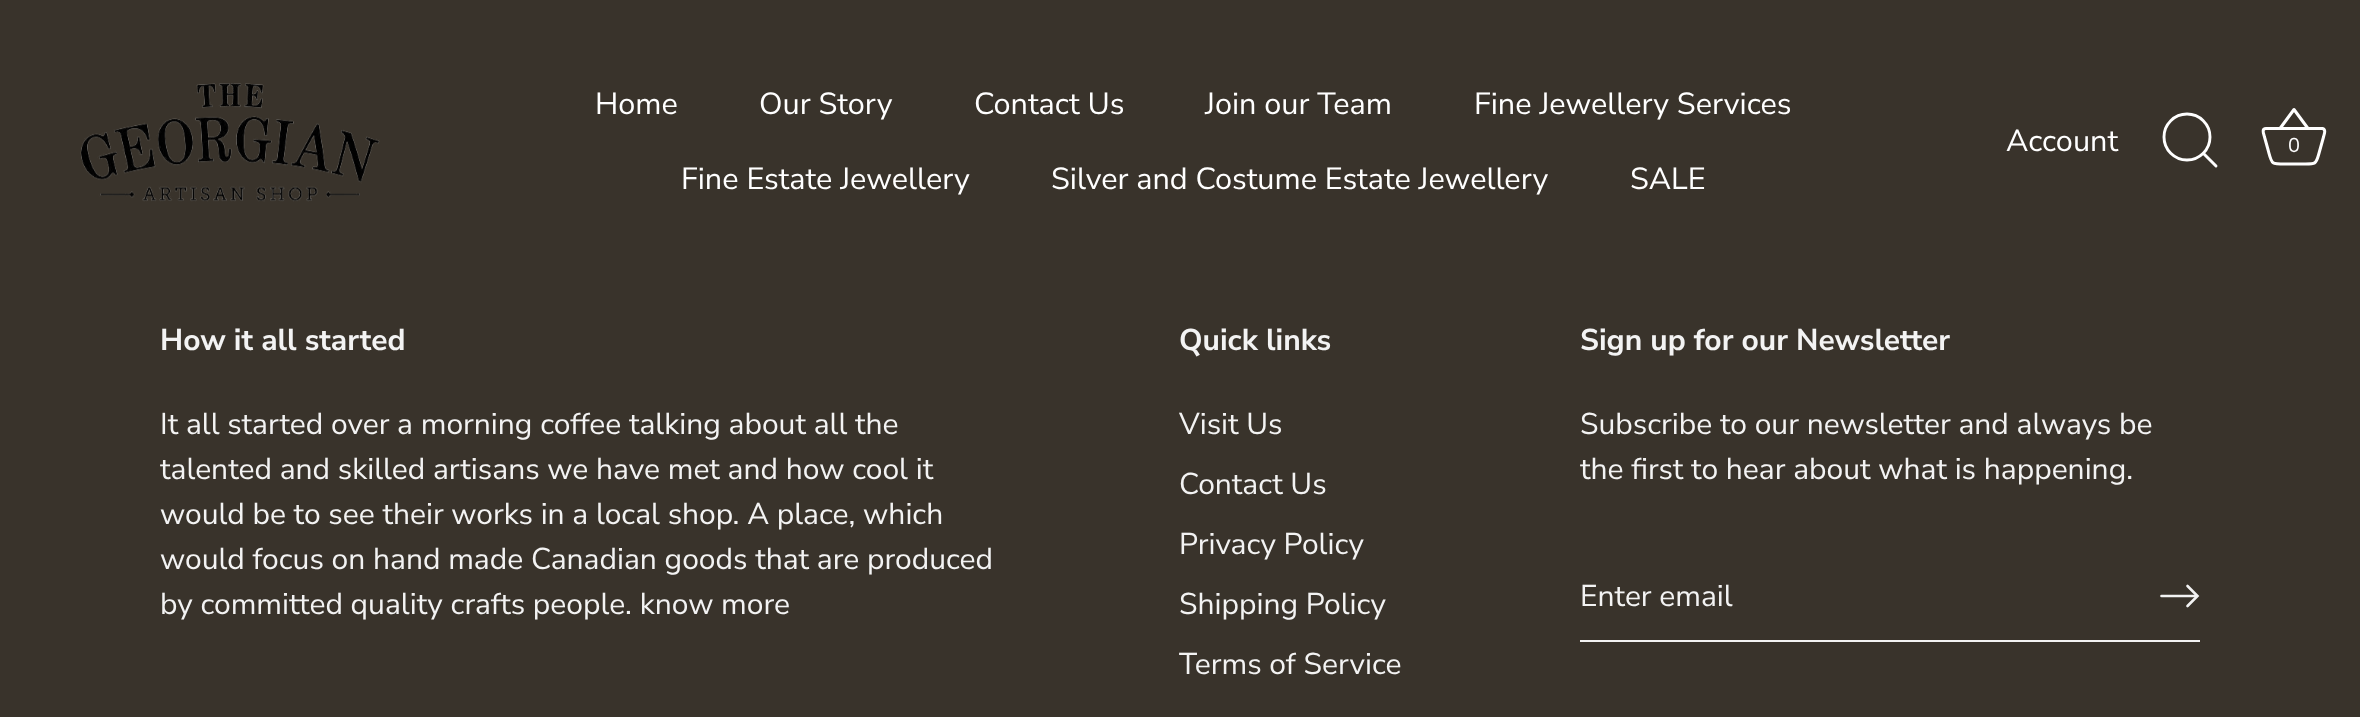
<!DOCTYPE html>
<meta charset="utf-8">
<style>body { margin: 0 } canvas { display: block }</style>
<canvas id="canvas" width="2360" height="717"></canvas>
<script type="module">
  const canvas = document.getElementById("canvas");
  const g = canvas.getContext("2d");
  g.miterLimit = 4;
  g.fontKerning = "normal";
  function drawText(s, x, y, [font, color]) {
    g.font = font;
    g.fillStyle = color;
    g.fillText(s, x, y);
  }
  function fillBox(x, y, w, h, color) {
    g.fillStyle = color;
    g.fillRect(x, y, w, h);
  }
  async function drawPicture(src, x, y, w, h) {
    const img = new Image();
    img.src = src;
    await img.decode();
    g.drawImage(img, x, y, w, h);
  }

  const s1 = ["30.6px Nunito Sans", "#FFFFFF"];
  const s2 = ["20px Nunito Sans", "#FFFFFF"];
  const s3 = ["bold 30px Nunito Sans", "#F3F3F3"];
  const s4 = ["30px Nunito Sans", "#F3F3F3"];

  fillBox(0, 0, 2360, 717, "#39332B");
  await drawPicture("pic1.png", 80, 83, 300, 119);
  drawText("Home", 595, 114, s1);
  drawText("Our Story", 759, 114, s1);
  drawText("Contact Us", 974, 114, s1);
  drawText("Join our Team", 1205, 114, s1);
  drawText("Fine Jewellery Services", 1474, 114, s1);
  drawText("Fine Estate Jewellery", 681, 189, s1);
  drawText("Silver and Costume Estate Jewellery", 1051, 189, s1);
  drawText("SALE", 1630, 189, s1);
  drawText("Account", 2006, 151, s1);
  g.beginPath();
  g.arc(2187, 137, 23, 0, Math.PI * 2);
  g.strokeStyle = "#FFFFFF";
  g.lineWidth = 2.9;
  g.stroke();
  g.beginPath();
  g.moveTo(2216, 166);
  g.lineTo(2203.5, 153.5);
  g.lineCap = "round";
  g.lineJoin = "round";
  g.stroke();
  g.beginPath();
  g.moveTo(2266, 128.5);
  g.bezierCurveTo(2261, 128.5, 2264, 134.5, 2264.5, 137);
  g.lineTo(2267, 146);
  g.bezierCurveTo(2272.5, 165, 2269, 164, 2288, 164);
  g.lineTo(2305.5, 164);
  g.bezierCurveTo(2315, 164, 2316, 164, 2318.5, 155);
  g.lineTo(2323.5, 137);
  g.bezierCurveTo(2324, 134.5, 2326.5, 129.5, 2322.5, 128.5);
  g.lineTo(2266, 128.5);
  g.lineWidth = 3;
  g.lineCap = "butt";
  g.stroke();
  g.beginPath();
  g.moveTo(2280, 128.5);
  g.lineTo(2294, 109.5);
  g.lineTo(2308, 128.5);
  g.stroke();
  drawText("0", 2288, 152, s2);
  drawText("How it all started", 160, 350, s3);
  drawText("It all started over a morning coffee talking about all the", 160, 434, s4);
  drawText("talented and skilled artisans we have met and how cool it", 160, 479, s4);
  drawText("would be to see their works in a local shop. A place, which", 160, 524, s4);
  drawText("would focus on hand made Canadian goods that are produced", 160, 569, s4);
  drawText("by committed quality crafts people. know more", 160, 614, s4);
  drawText("Quick links", 1179, 350, s3);
  drawText("Visit Us", 1179, 434, s4);
  drawText("Contact Us", 1179, 494, s4);
  drawText("Privacy Policy", 1179, 554, s4);
  drawText("Shipping Policy", 1179, 614, s4);
  drawText("Terms of Service", 1179, 674, s4);
  drawText("Sign up for our Newsletter", 1580, 350, s3);
  drawText("Subscribe to our newsletter and always be", 1580, 434, s4);
  drawText("the first to hear about what is happening.", 1580, 479, s4);
  fillBox(1580, 640, 620, 2, "#F3F3F3");
  drawText("Enter email", 1580, 606, s4);
  g.beginPath();
  g.moveTo(2187.5, 606);
  g.lineTo(2197.5, 596);
  g.lineTo(2187.5, 586);
  g.strokeStyle = "#F3F3F3";
  g.lineWidth = 2.6;
  g.lineCap = "round";
  g.lineJoin = "miter";
  g.stroke();
  g.beginPath();
  g.moveTo(2196.5, 596);
  g.lineTo(2161.5, 596);
  g.lineJoin = "round";
  g.stroke();
</script>
